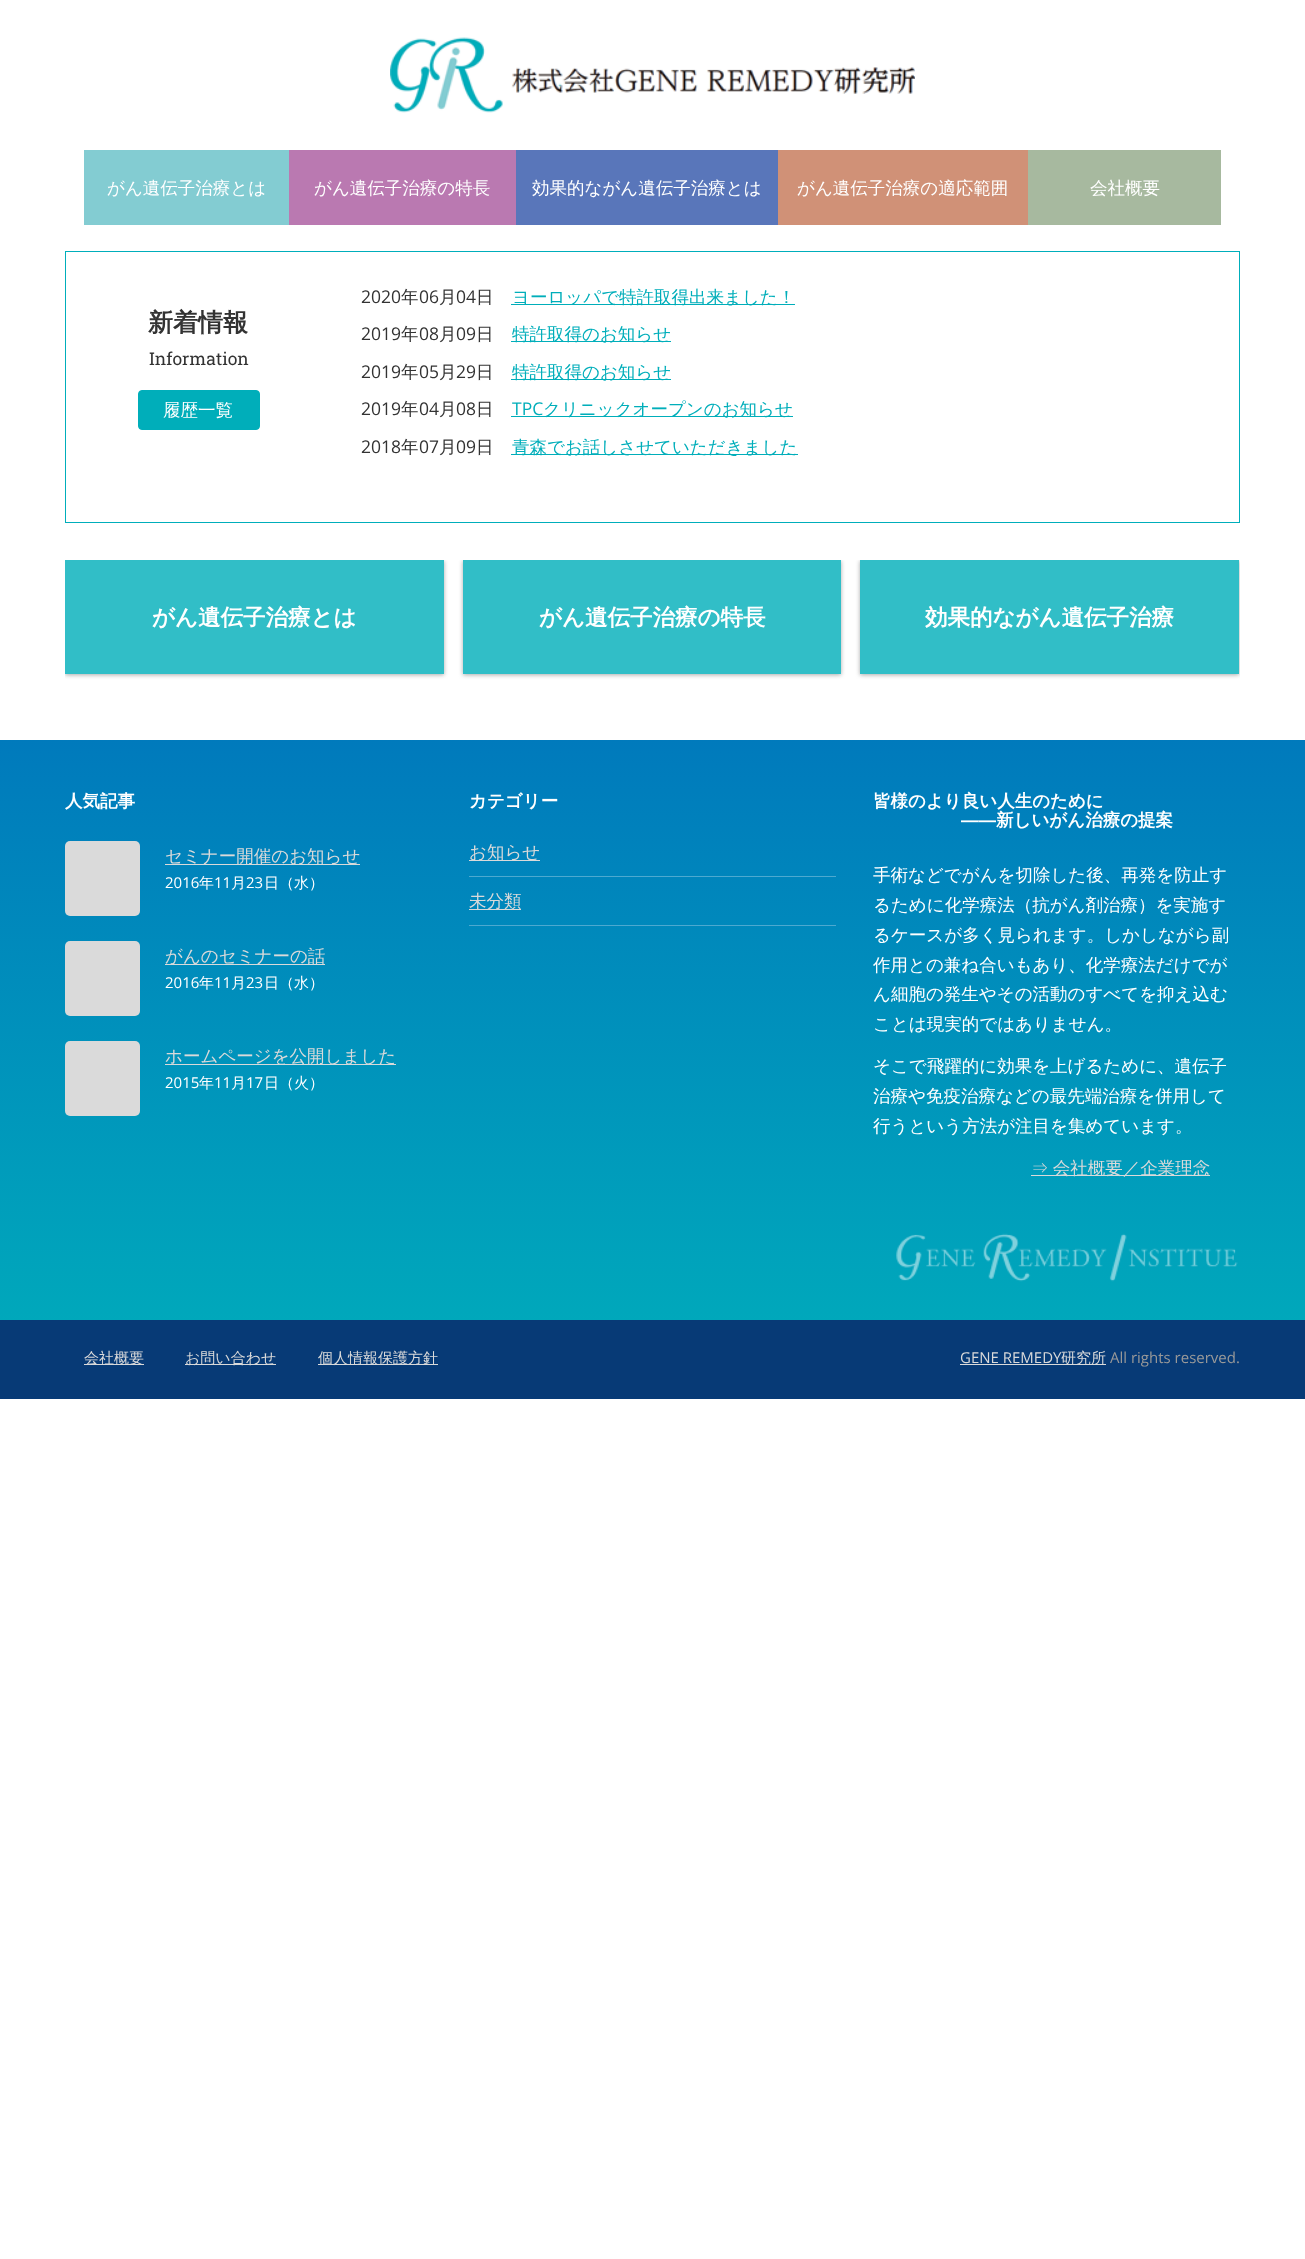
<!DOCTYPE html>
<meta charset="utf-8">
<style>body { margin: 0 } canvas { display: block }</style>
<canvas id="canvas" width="1305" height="2259"></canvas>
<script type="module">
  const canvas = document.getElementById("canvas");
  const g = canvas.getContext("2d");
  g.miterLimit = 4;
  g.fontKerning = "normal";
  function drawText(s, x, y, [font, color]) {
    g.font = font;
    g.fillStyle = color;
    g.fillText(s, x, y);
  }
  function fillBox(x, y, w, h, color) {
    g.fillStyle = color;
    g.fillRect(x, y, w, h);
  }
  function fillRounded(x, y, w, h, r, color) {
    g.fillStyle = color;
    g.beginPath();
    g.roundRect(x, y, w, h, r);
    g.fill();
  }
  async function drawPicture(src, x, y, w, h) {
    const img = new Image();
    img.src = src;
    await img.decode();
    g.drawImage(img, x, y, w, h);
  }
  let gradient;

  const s1 = ["500 17.5px WenQuanYi Zen Hei", "#FFFFFF"];
  const s2 = ["bold 25px WenQuanYi Zen Hei", "#333333"];
  const s3 = ["17.5px Roboto Slab", "#333333"];
  const s4 = ["17.5px Open Sans", "#333333"];
  const s5 = ["500 17.5px WenQuanYi Zen Hei", "#333333"];
  const s6 = ["500 17.5px WenQuanYi Zen Hei", "#00AEBA"];
  const s7 = ["17.5px Open Sans", "#00AEBA"];
  const s8 = ["bold 22.5px WenQuanYi Zen Hei", "#FFFFFF"];
  const s9 = ["bold 17.5px WenQuanYi Zen Hei", "#FFFFFF"];
  const s10 = ["500 17.5px WenQuanYi Zen Hei", "#DADADA"];
  const s11 = ["15px Open Sans", "#FFFFFF"];
  const s12 = ["500 15px WenQuanYi Zen Hei", "#FFFFFF"];
  const s13 = ["bold 17.5px Liberation Sans", "#FFFFFF"];
  const s14 = ["500 15px WenQuanYi Zen Hei", "#DADADA"];
  const s15 = ["15px Open Sans", "#DADADA"];
  const s16 = ["15px Open Sans", "#999999"];

  fillBox(0, 0, 1305, 2259, "#FFFFFF");
  await drawPicture("pic1.png", 390, 37, 525, 76);
  fillBox(84, 150, 205, 75, "#83CCD2");
  drawText("がん遺伝子治療とは", 107, 194, s1);
  fillBox(289, 150, 227, 75, "#BA79B1");
  drawText("がん遺伝子治療の特長", 314, 194, s1);
  fillBox(516, 150, 262, 75, "#5976BA");
  drawText("効果的ながん遺伝子治療とは", 532, 194, s1);
  fillBox(778, 150, 250, 75, "#D09177");
  drawText("がん遺伝子治療の適応範囲", 797, 194, s1);
  fillBox(1028, 150, 193, 75, "#A7B99F");
  drawText("会社概要", 1090, 194, s1);
  g.strokeStyle = "#00AEBB";
  g.strokeRect(65.5, 251.5, 1174, 271);
  drawText("新着情報", 148, 331, s2);
  drawText("Information", 149, 365, s3);
  g.fillStyle = "#00AEBA";
  g.beginPath();
  g.roundRect(138.5, 390.5, 121, 39, 3.5);
  g.fill();
  g.strokeStyle = "#00AEBA";
  g.stroke();
  drawText("履歴一覧", 163, 416, s1);
  drawText("2020", 361, 303, s4);
  drawText("年", 401, 303, s5);
  drawText("06", 419, 303, s4);
  drawText("月", 439, 303, s5);
  drawText("04", 456, 303, s4);
  drawText("日", 476, 303, s5);
  fillBox(511, 304, 284, 1, "#00AEBA");
  drawText("ヨーロッパで特許取得出来ました！", 512, 303, s6);
  drawText("2019", 361, 340, s4);
  drawText("年", 401, 340, s5);
  drawText("08", 419, 340, s4);
  drawText("月", 439, 340, s5);
  drawText("09", 456, 340, s4);
  drawText("日", 476, 340, s5);
  fillBox(511, 341, 160, 1, "#00AEBA");
  drawText("特許取得のお知らせ", 512, 340, s6);
  drawText("2019", 361, 378, s4);
  drawText("年", 401, 378, s5);
  drawText("05", 419, 378, s4);
  drawText("月", 439, 378, s5);
  drawText("29", 456, 378, s4);
  drawText("日", 476, 378, s5);
  fillBox(511, 379, 160, 1, "#00AEBA");
  drawText("特許取得のお知らせ", 512, 378, s6);
  drawText("2019", 361, 415, s4);
  drawText("年", 401, 415, s5);
  drawText("04", 419, 415, s4);
  drawText("月", 439, 415, s5);
  drawText("08", 456, 415, s4);
  drawText("日", 476, 415, s5);
  drawText("TPC", 512, 415, s7);
  fillBox(511, 416, 282, 1, "#00AEBA");
  drawText("クリニックオープンのお知らせ", 543, 415, s6);
  drawText("2018", 361, 453, s4);
  drawText("年", 401, 453, s5);
  drawText("07", 419, 453, s4);
  drawText("月", 439, 453, s5);
  drawText("09", 456, 453, s4);
  drawText("日", 476, 453, s5);
  fillBox(511, 454, 287, 1, "#00AEBA");
  drawText("青森でお話しさせていただきました", 512, 453, s6);
  g.save();
  g.beginPath();
  g.rect(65, 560, 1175, 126);
  g.clip();
  g.fillStyle = "#AAAAAA";
  g.filter = "blur(2px)";
  g.beginPath();
  g.rect(65, 561, 379, 114);
  g.fill();
  g.filter = "none";
  g.restore();
  fillBox(65, 560, 379, 114, "#31BEC7");
  drawText("がん遺伝子治療とは", 152, 625, s8);
  g.save();
  g.beginPath();
  g.rect(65, 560, 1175, 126);
  g.clip();
  g.fillStyle = "#AAAAAA";
  g.filter = "blur(2px)";
  g.beginPath();
  g.rect(463, 561, 378, 114);
  g.fill();
  g.filter = "none";
  g.restore();
  fillBox(463, 560, 378, 114, "#31BEC7");
  drawText("がん遺伝子治療の特長", 539, 625, s8);
  g.save();
  g.beginPath();
  g.rect(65, 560, 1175, 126);
  g.clip();
  g.fillStyle = "#AAAAAA";
  g.filter = "blur(2px)";
  g.beginPath();
  g.rect(860, 561, 379, 114);
  g.fill();
  g.filter = "none";
  g.restore();
  fillBox(860, 560, 379, 114, "#31BEC7");
  drawText("効果的ながん遺伝子治療", 925, 625, s8);
  gradient = g.createLinearGradient(653, 740, 653, 1399);
  gradient.addColorStop(0, "#007ABC");
  gradient.addColorStop(1, "#00AEBB");
  g.fillStyle = gradient;
  g.fillRect(0, 740, 1305, 580);
  await drawPicture("pic2.png", 896, 1233, 342, 49);
  drawText("人気記事", 65, 807, s9);
  fillRounded(65, 841, 75, 75, 5, "#DADADA");
  fillBox(165, 864, 195, 1, "#DADADA");
  drawText("セミナー開催のお知らせ", 165, 862, s10);
  drawText("2016", 165, 888, s11);
  drawText("年", 199, 888, s12);
  drawText("11", 214, 888, s11);
  drawText("月", 231, 888, s12);
  drawText("23", 246, 888, s11);
  drawText("日（水）", 264, 888, s12);
  fillRounded(65, 941, 75, 75, 5, "#DADADA");
  fillBox(165, 964, 160, 1, "#DADADA");
  drawText("がんのセミナーの話", 165, 962, s10);
  drawText("2016", 165, 988, s11);
  drawText("年", 199, 988, s12);
  drawText("11", 214, 988, s11);
  drawText("月", 231, 988, s12);
  drawText("23", 246, 988, s11);
  drawText("日（水）", 264, 988, s12);
  fillRounded(65, 1041, 75, 75, 5, "#DADADA");
  fillBox(165, 1064, 231, 1, "#DADADA");
  drawText("ホームページを公開しました", 165, 1062, s10);
  drawText("2015", 165, 1088, s11);
  drawText("年", 199, 1088, s12);
  drawText("11", 214, 1088, s11);
  drawText("月", 231, 1088, s12);
  drawText("17", 246, 1088, s11);
  drawText("日（火）", 264, 1088, s12);
  drawText("カテゴリー", 469, 807, s9);
  fillBox(469, 876, 367, 1, "#4DA9D0");
  fillBox(469, 860, 71, 1, "#DADADA");
  drawText("お知らせ", 469, 858, s10);
  fillBox(469, 925, 367, 1, "#4DA9D0");
  fillBox(469, 909, 52, 1, "#DADADA");
  drawText("未分類", 469, 907, s10);
  drawText("皆様のより良い人生のために", 873, 807, s9);
  drawText("――", 961, 826, s13);
  drawText("新しいがん治療の提案", 996, 826, s9);
  drawText("手術などでがんを切除した後、再発を防止す", 873, 881, s1);
  drawText("るために化学療法（抗がん剤治療）を実施す", 873, 911, s1);
  drawText("るケースが多く見られます。しかしながら副", 873, 941, s1);
  drawText("作用との兼ね合いもあり、化学療法だけでが", 873, 971, s1);
  drawText("ん細胞の発生やその活動のすべてを抑え込む", 873, 1000, s1);
  drawText("ことは現実的ではありません。", 873, 1030, s1);
  drawText("そこで飛躍的に効果を上げるために、遺伝子", 873, 1072, s1);
  drawText("治療や免疫治療などの最先端治療を併用して", 873, 1102, s1);
  drawText("行うという方法が注目を集めています。", 873, 1132, s1);
  fillBox(1031, 1175, 179, 1, "#DADADA");
  g.wordSpacing = "-1px";
  drawText("⇒ 会社概要／企業理念", 1031, 1174, s10);
  fillBox(0, 1320, 1305, 79, "#073A76");
  fillBox(84, 1364, 60, 1, "#DADADA");
  g.wordSpacing = "0px";
  drawText("会社概要", 84, 1363, s14);
  fillBox(185, 1364, 91, 1, "#DADADA");
  drawText("お問い合わせ", 185, 1363, s14);
  fillBox(318, 1364, 120, 1, "#DADADA");
  drawText("個人情報保護方針", 318, 1363, s14);
  drawText("GENE REMEDY", 960, 1363, s15);
  fillBox(960, 1364, 146, 1, "#DADADA");
  drawText("研究所", 1061, 1363, s14);
  drawText("All rights reserved.", 1110, 1363, s16);
</script>
